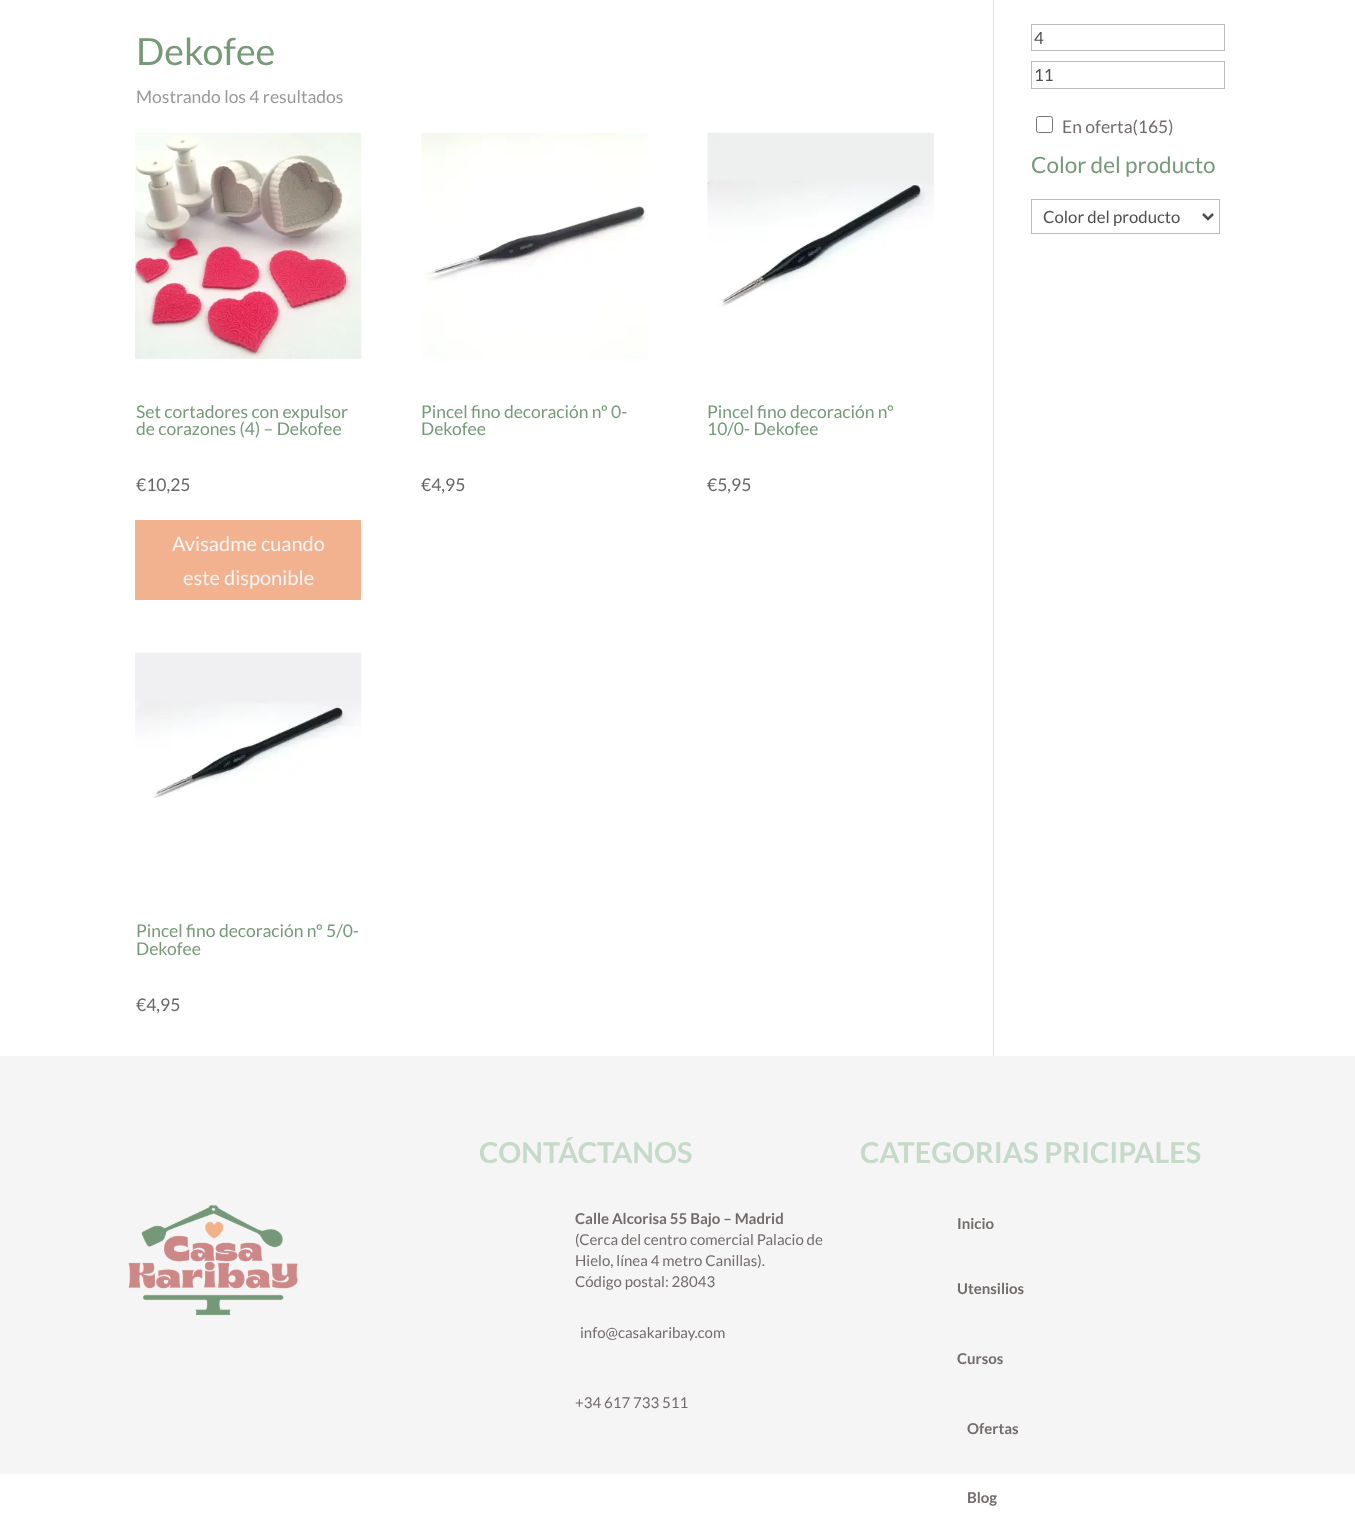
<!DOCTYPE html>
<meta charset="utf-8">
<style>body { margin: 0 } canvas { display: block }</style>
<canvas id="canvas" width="1355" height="1535"></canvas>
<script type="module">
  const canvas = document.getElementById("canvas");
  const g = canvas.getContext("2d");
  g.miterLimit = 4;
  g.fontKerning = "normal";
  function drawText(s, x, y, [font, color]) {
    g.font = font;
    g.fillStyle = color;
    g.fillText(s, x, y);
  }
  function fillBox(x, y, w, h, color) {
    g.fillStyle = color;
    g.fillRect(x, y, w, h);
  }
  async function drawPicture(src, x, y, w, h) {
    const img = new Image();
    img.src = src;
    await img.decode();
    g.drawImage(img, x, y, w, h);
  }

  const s1 = ["37.5px Lato", "#769979"];
  const s2 = ["17.5px Lato", "#999999"];
  const s3 = ["17.5px Lato", "#769979"];
  const s4 = ["17.5px Lato", "#666666"];
  const s5 = ["20px Lato", "#F6F5F5"];
  const s6 = ["16.75px Lato", "#4E4E4E"];
  const s7 = ["17.5px Lato", "#716B6A"];
  const s8 = ["22.5px Lato", "#769979"];
  const s9 = ["bold 28.75px Lato", "#C5DAC8"];
  const s10 = ["bold 15px Lato", "#716B6A"];
  const s11 = ["15px Lato", "#716B6A"];

  fillBox(0, 0, 1355, 1535, "#FFFFFF");
  fillBox(993, 0, 1, 1056, "#E2E2E2");
  drawText("Dekofee", 136, 65, s1);
  drawText("Mostrando los 4 resultados", 136, 103, s2);
  await drawPicture("pic1.png", 135, 132, 227, 227);
  drawText("Set cortadores con expulsor", 136, 418, s3);
  drawText("de corazones (4) – Dekofee", 136, 435, s3);
  drawText("€10,25", 136, 491, s4);
  fillBox(135, 520, 226, 80, "#F2B28F");
  drawText("Avisadme cuando", 172, 551, s5);
  drawText("este disponible", 183, 585, s5);
  await drawPicture("pic2.png", 421, 132, 227, 227);
  drawText("Pincel fino decoración nº 0-", 421, 418, s3);
  drawText("Dekofee", 421, 435, s3);
  drawText("€4,95", 421, 491, s4);
  await drawPicture("pic3.png", 707, 132, 227, 176);
  drawText("Pincel fino decoración nº", 707, 418, s3);
  drawText("10/0- Dekofee", 707, 435, s3);
  drawText("€5,95", 707, 491, s4);
  await drawPicture("pic4.png", 135, 652, 227, 146);
  drawText("Pincel fino decoración nº 5/0-", 136, 937, s3);
  drawText("Dekofee", 136, 955, s3);
  drawText("€4,95", 136, 1011, s4);
  g.strokeStyle = "#BBBBBB";
  g.strokeRect(1031.5, 24.5, 193, 26);
  drawText("4", 1034, 44, s6);
  g.strokeRect(1031.5, 61.5, 193, 27);
  drawText("11", 1034, 81, s6);
  g.beginPath();
  g.roundRect(1036.5, 116.5, 16, 16, 2);
  g.strokeStyle = "#767676";
  g.stroke();
  drawText("En oferta(165)", 1062, 133, s7);
  drawText("Color del producto", 1031, 173, s8);
  g.strokeStyle = "#BBBBBB";
  g.strokeRect(1031.5, 199.5, 188, 34);
  g.beginPath();
  g.moveTo(1203, 214);
  g.lineTo(1208, 219);
  g.lineTo(1213, 214);
  g.strokeStyle = "#4E4E4E";
  g.lineWidth = 2.5;
  g.stroke();
  drawText("Color del producto", 1043, 223, s6);
  fillBox(0, 1056, 1355, 418, "#F6F5F5");
  await drawPicture("pic5.png", 128, 1205, 170, 111);
  drawText("CONTÁCTANOS", 479, 1163, s9);
  drawText("Calle Alcorisa 55 Bajo – Madrid", 575, 1224, s10);
  drawText("(Cerca del centro comercial Palacio de", 575, 1245, s11);
  drawText("Hielo, línea 4 metro Canillas).", 575, 1266, s11);
  drawText("Código postal: 28043", 575, 1287, s11);
  drawText("info@casakaribay.com", 580, 1338, s11);
  drawText("+34 617 733 511", 575, 1408, s11);
  drawText("CATEGORIAS PRICIPALES", 860, 1163, s9);
  drawText("Inicio", 957, 1229, s10);
  drawText("Utensilios", 957, 1294, s10);
  drawText("Cursos", 957, 1364, s10);
  drawText("Ofertas", 967, 1434, s10);
  drawText("Blog", 967, 1503, s10);
</script>
